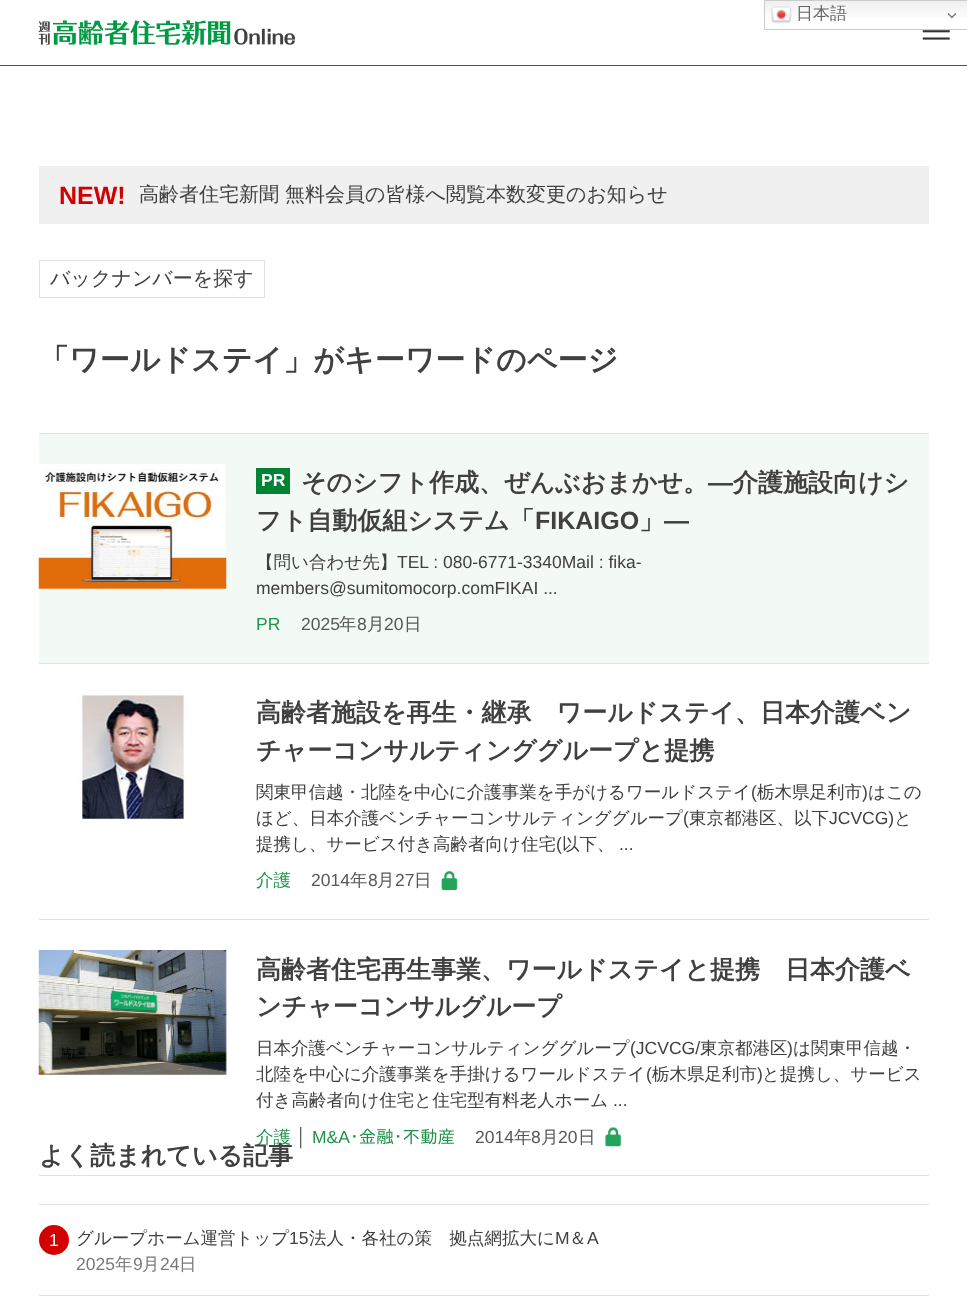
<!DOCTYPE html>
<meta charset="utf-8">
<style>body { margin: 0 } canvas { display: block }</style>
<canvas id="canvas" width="967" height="1309"></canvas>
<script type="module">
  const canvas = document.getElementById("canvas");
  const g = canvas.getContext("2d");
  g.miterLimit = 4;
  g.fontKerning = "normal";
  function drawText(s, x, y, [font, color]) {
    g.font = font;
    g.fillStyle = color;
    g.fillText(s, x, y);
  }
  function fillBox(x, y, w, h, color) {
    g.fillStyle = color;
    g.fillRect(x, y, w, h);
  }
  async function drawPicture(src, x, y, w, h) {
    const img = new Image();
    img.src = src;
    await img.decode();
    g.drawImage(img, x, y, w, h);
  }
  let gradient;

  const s1 = ["500 17px WenQuanYi Zen Hei", "#666666"];
  const s2 = ["bold 25px Liberation Sans", "#D20000"];
  const s3 = ["500 20px WenQuanYi Zen Hei", "#404040"];
  const s4 = ["bold 30px WenQuanYi Zen Hei", "#404040"];
  const s5 = ["bold 17.5px Liberation Sans", "#FFFFFF"];
  const s6 = ["bold 25px WenQuanYi Zen Hei", "#404040"];
  const s7 = ["bold 25px Liberation Sans", "#404040"];
  const s8 = ["500 17.5px WenQuanYi Zen Hei", "#404040"];
  const s9 = ["17.5px Liberation Sans", "#404040"];
  const s10 = ["17.5px Liberation Sans", "#1E934B"];
  const s11 = ["17.5px Liberation Sans", "#565757"];
  const s12 = ["500 17.5px WenQuanYi Zen Hei", "#565757"];
  const s13 = ["500 17.5px WenQuanYi Zen Hei", "#1E934B"];
  const s14 = ["17.5px IPAPGothic", "#1E934B"];
  const s15 = ["17.5px Liberation Sans", "#FFFFFF"];
  const s16 = ["17.5px Liberation Sans", "#797979"];
  const s17 = ["500 17.5px WenQuanYi Zen Hei", "#797979"];

  fillBox(0, 0, 967, 1309, "#FFFFFF");
  fillBox(0, 65, 967, 1, "#008433");
  gradient = g.createLinearGradient(866, 0, 866, 30);
  gradient.addColorStop(0, "#EFEFEF");
  gradient.addColorStop(0.7, "#FFFFFF");
  g.fillStyle = gradient;
  g.fillRect(765, 1, 202, 17);
  g.strokeStyle = "#CCCCCC";
  g.strokeRect(764.5, 0.5, 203, 29);
  await drawPicture("pic1.png", 771, 6, 21, 18);
  drawText("日本語", 796, 19, s1);
  await drawPicture("pic2.png", 948, 13, 8, 6);
  await drawPicture("pic3.png", 38, 20, 257, 25);
  await drawPicture("pic4.png", 922, 30, 28, 10);
  fillBox(39, 166, 890, 58, "#F0F0F0");
  drawText("NEW!", 59, 204, s2);
  drawText("高齢者住宅新聞 無料会員の皆様へ閲覧本数変更のお知らせ", 139, 201, s3);
  g.strokeStyle = "#E2E2E2";
  g.strokeRect(39.5, 260.5, 225, 37);
  drawText("バックナンバーを探す", 50, 285, s3);
  drawText("「ワールドステイ」がキーワードのページ", 39, 370, s4);
  fillBox(39, 434, 890, 229, "#F3F9F5");
  fillBox(39, 433, 890, 1, "#E2E2E2");
  await drawPicture("pic5.png", 38, 464, 189, 125);
  fillBox(256, 468, 34, 26, "#008433");
  drawText("PR", 261, 486, s5);
  drawText("そのシフト作成、ぜんぶおまかせ。", 301, 491, s6);
  drawText("―", 708, 491, s7);
  drawText("介護施設向けシ", 733, 491, s6);
  drawText("フト自動仮組システム「", 256, 529, s6);
  drawText("FIKAIGO", 535, 529, s7);
  drawText("」", 639, 529, s6);
  drawText("―", 664, 529, s7);
  drawText("【問い合わせ先】", 256, 568, s8);
  drawText("TEL : 080-6771-3340Mail : fika-", 397, 568, s9);
  drawText("members@sumitomocorp.comFIKAI ...", 256, 594, s9);
  drawText("PR", 256, 630, s10);
  drawText("2025", 301, 630, s11);
  drawText("年", 339, 630, s12);
  drawText("8", 357, 630, s11);
  drawText("月", 367, 630, s12);
  drawText("20", 384, 630, s11);
  drawText("日", 404, 630, s12);
  fillBox(39, 663, 890, 1, "#E2E2E2");
  fillBox(39, 919, 890, 1, "#E2E2E2");
  await drawPicture("pic6.png", 78, 694, 108, 125);
  drawText("高齢者施設を再生・継承　ワールドステイ、日本介護ベン", 256, 721, s6);
  drawText("チャーコンサルティンググループと提携", 256, 759, s6);
  drawText("関東甲信越・北陸を中心に介護事業を手がけるワールドステイ", 256, 798, s8);
  drawText("(", 751, 798, s9);
  drawText("栃木県足利市", 757, 798, s8);
  drawText(")", 862, 798, s9);
  drawText("はこの", 868, 798, s8);
  drawText("ほど、日本介護ベンチャーコンサルティンググループ", 256, 824, s8);
  drawText("(", 683, 824, s9);
  drawText("東京都港区、以下", 689, 824, s8);
  drawText("JCVCG)", 829, 824, s9);
  drawText("と", 894, 824, s8);
  drawText("提携し、サービス付き高齢者向け住宅", 256, 850, s8);
  drawText("(", 556, 850, s9);
  drawText("以下、", 562, 850, s8);
  drawText("...", 619, 850, s9);
  drawText("介護", 256, 886, s13);
  drawText("2014", 311, 886, s11);
  drawText("年", 350, 886, s12);
  drawText("8", 368, 886, s11);
  drawText("月", 377, 886, s12);
  drawText("27", 395, 886, s11);
  drawText("日", 414, 886, s12);
  await drawPicture("pic7.png", 441, 871, 17, 19);
  fillBox(39, 1175, 890, 1, "#E2E2E2");
  await drawPicture("pic8.png", 38, 950, 189, 125);
  drawText("高齢者住宅再生事業、ワールドステイと提携　日本介護ベ", 256, 978, s6);
  drawText("ンチャーコンサルグループ", 256, 1015, s6);
  drawText("日本介護ベンチャーコンサルティンググループ", 256, 1054, s8);
  drawText("(JCVCG/", 630, 1054, s9);
  drawText("東京都港区", 700, 1054, s8);
  drawText(")", 787, 1054, s9);
  drawText("は関東甲信越・", 793, 1054, s8);
  drawText("北陸を中心に介護事業を手掛けるワールドステイ", 256, 1080, s8);
  drawText("(", 646, 1080, s9);
  drawText("栃木県足利市", 652, 1080, s8);
  drawText(")", 757, 1080, s9);
  drawText("と提携し、サービス", 762, 1080, s8);
  drawText("付き高齢者向け住宅と住宅型有料老人ホーム", 256, 1106, s8);
  drawText("...", 613, 1106, s9);
  drawText("介護", 256, 1143, s13);
  drawText("│", 296, 1143, s11);
  drawText("M&A", 312, 1143, s10);
  drawText("･金融･不動産", 350, 1143, s14);
  drawText("2014", 475, 1143, s11);
  drawText("年", 514, 1143, s12);
  drawText("8", 531, 1143, s11);
  drawText("月", 541, 1143, s12);
  drawText("20", 558, 1143, s11);
  drawText("日", 578, 1143, s12);
  await drawPicture("pic9.png", 605, 1127, 17, 20);
  drawText("よく読まれている記事", 39, 1164, s6);
  fillBox(39, 1204, 890, 1, "#E2E2E2");
  fillBox(39, 1295, 890, 1, "#E2E2E2");
  g.fillStyle = "#D20000";
  g.beginPath();
  g.arc(54, 1240, 15, 0, Math.PI * 2);
  g.fill();
  drawText("1", 49, 1246, s15);
  drawText("グループホーム運営トップ", 76, 1244, s8);
  drawText("15", 289, 1244, s9);
  drawText("法人・各社の策　拠点網拡大に", 309, 1244, s8);
  drawText("M", 555, 1244, s9);
  drawText("＆", 569, 1244, s8);
  drawText("A", 587, 1244, s9);
  drawText("2025", 76, 1270, s16);
  drawText("年", 115, 1270, s17);
  drawText("9", 133, 1270, s16);
  drawText("月", 142, 1270, s17);
  drawText("24", 160, 1270, s16);
  drawText("日", 179, 1270, s17);
</script>
